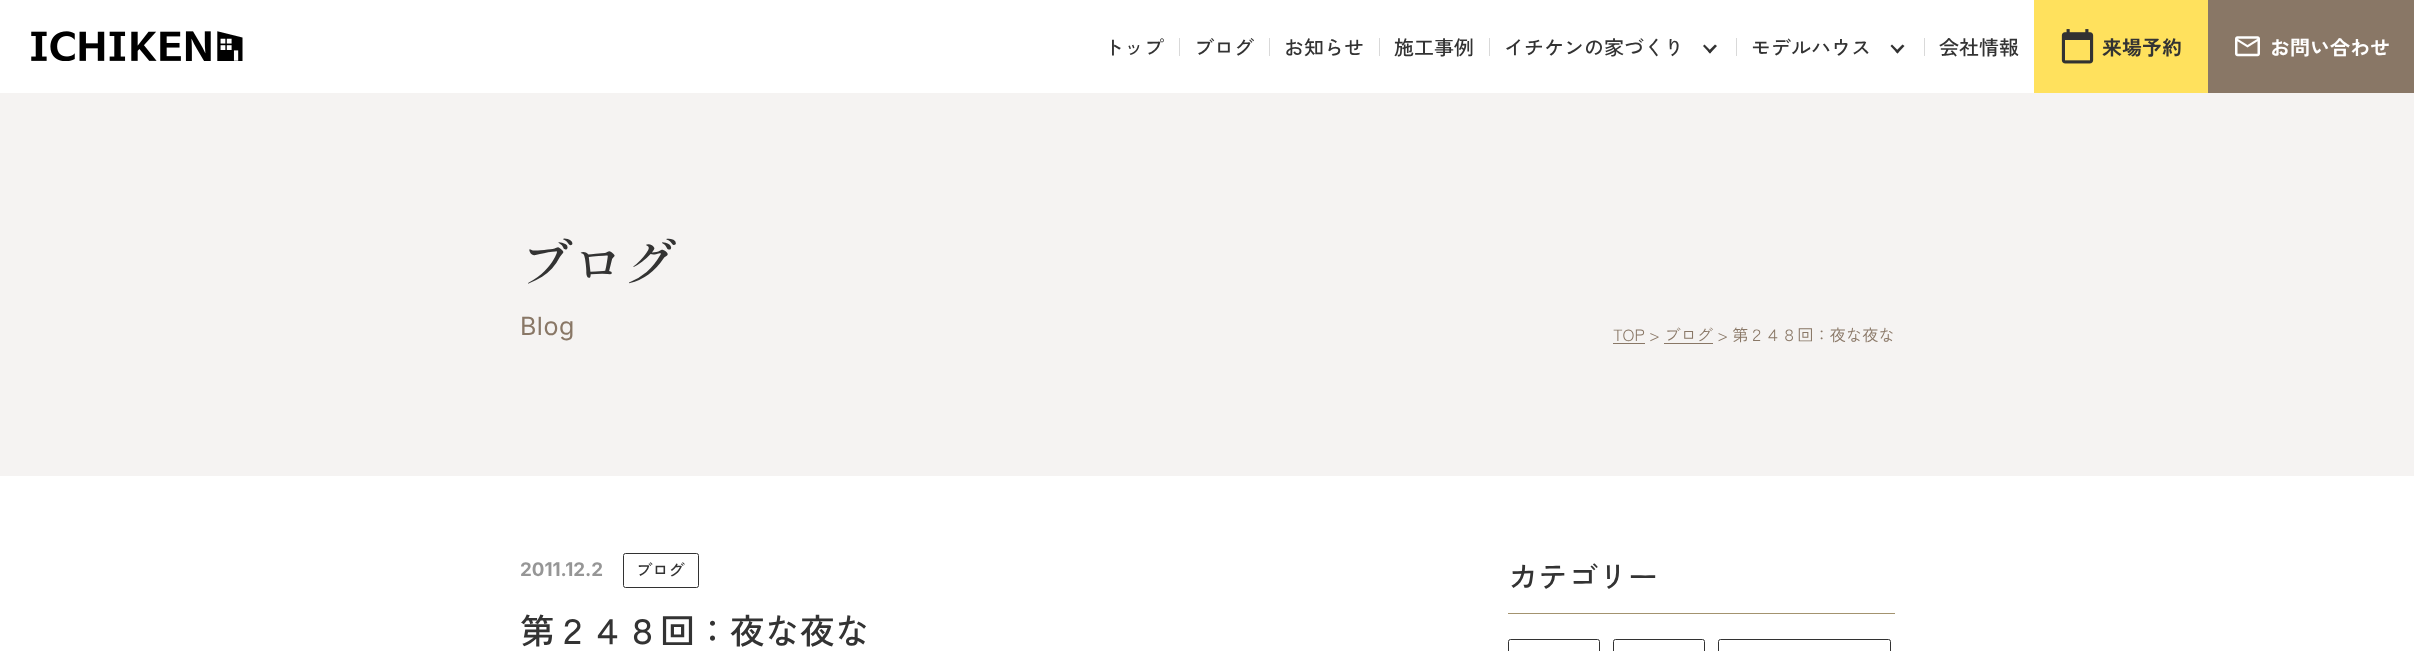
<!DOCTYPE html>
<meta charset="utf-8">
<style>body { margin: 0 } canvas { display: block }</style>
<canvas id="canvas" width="2414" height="651"></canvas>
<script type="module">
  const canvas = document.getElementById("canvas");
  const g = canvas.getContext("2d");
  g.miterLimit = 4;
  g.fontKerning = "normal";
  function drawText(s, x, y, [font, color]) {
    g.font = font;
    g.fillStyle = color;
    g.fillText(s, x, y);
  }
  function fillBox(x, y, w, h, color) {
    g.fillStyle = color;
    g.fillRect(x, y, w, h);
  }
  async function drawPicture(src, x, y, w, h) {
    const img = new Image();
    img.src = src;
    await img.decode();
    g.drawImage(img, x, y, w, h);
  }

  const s1 = ["500 20px Zen Kaku Gothic New", "#333333"];
  const s2 = ["bold 20px Zen Kaku Gothic New", "#333333"];
  const s3 = ["bold 20px Zen Kaku Gothic New", "#FFFFFF"];
  const s4 = ["500 52.5px Shippori Mincho", "#333333"];
  const s5 = ["25px Inter", "#897766"];
  const s6 = ["16.25px Zen Kaku Gothic New", "#897766"];
  const s7 = ["bold 18.75px Inter", "#969696"];
  const s8 = ["500 16.25px Zen Kaku Gothic New", "#333333"];
  const s9 = ["500 35px Zen Kaku Gothic New", "#333333"];
  const s10 = ["500 30px Zen Kaku Gothic New", "#333333"];

  fillBox(0, 0, 2414, 651, "#FFFFFF");
  await drawPicture("pic1.png", 31, 31, 212, 30);
  drawText("トップ", 1104, 55, s1);
  fillBox(1179, 38, 1, 18, "#D9D9D9");
  drawText("ブログ", 1194, 55, s1);
  fillBox(1269, 38, 1, 18, "#D9D9D9");
  drawText("お知らせ", 1284, 55, s1);
  fillBox(1379, 38, 1, 18, "#D9D9D9");
  drawText("施工事例", 1394, 55, s1);
  fillBox(1489, 38, 1, 18, "#D9D9D9");
  drawText("イチケンの家づくり", 1504, 55, s1);
  g.fillStyle = "#323232";
  g.beginPath();
  g.moveTo(1717, 46);
  g.lineTo(1710, 53.5);
  g.lineTo(1708, 51.5);
  g.lineTo(1715, 44.5);
  g.closePath();
  g.fill();
  g.beginPath();
  g.moveTo(1711.5, 51.5);
  g.lineTo(1710, 53.5);
  g.lineTo(1703, 46);
  g.lineTo(1704.5, 44.5);
  g.closePath();
  g.fill();
  fillBox(1736, 38, 1, 18, "#D9D9D9");
  drawText("モデルハウス", 1751, 55, s1);
  g.fillStyle = "#323232";
  g.beginPath();
  g.moveTo(1904.5, 46);
  g.lineTo(1897.5, 53.5);
  g.lineTo(1895.5, 51.5);
  g.lineTo(1902.5, 44.5);
  g.closePath();
  g.fill();
  g.beginPath();
  g.moveTo(1899, 51.5);
  g.lineTo(1897.5, 53.5);
  g.lineTo(1890.5, 46);
  g.lineTo(1892, 44.5);
  g.closePath();
  g.fill();
  fillBox(1924, 38, 1, 18, "#D9D9D9");
  drawText("会社情報", 1939, 55, s1);
  fillBox(2034, 0, 174, 93, "#FFE15D");
  await drawPicture("pic2.png", 2061, 29, 33, 35);
  drawText("来場予約", 2102, 55, s2);
  fillBox(2208, 0, 206, 93, "#897766");
  await drawPicture("pic3.png", 2235, 36, 25, 21);
  drawText("お問い合わせ", 2270, 55, s3);
  fillBox(0, 93, 2414, 383, "#F5F3F2");
  drawText("ブログ", 520, 283, s4);
  g.letterSpacing = "0.5px";
  drawText("Blog", 520, 335, s5);
  g.letterSpacing = "0px";
  drawText("TOP > ブログ > 第２４８回：夜な夜な", 1613, 341, s6);
  fillBox(1613, 343, 32, 1, "#897766");
  fillBox(1664, 343, 49, 1, "#897766");
  drawText("2011.12.2", 520, 576, s7);
  g.beginPath();
  g.roundRect(623.5, 553.5, 75, 34, 2);
  g.strokeStyle = "#323232";
  g.stroke();
  drawText("ブログ", 636, 576, s8);
  drawText("第２４８回：夜な夜な", 520, 644, s9);
  fillBox(1508, 613, 387, 1, "#A3936F");
  drawText("カテゴリー", 1508, 588, s10);
  g.beginPath();
  g.roundRect(1508.5, 639.5, 91, 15, 2);
  g.stroke();
  g.beginPath();
  g.roundRect(1613.5, 639.5, 91, 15, 2);
  g.stroke();
  g.beginPath();
  g.roundRect(1718.5, 639.5, 172, 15, 2);
  g.stroke();
</script>
